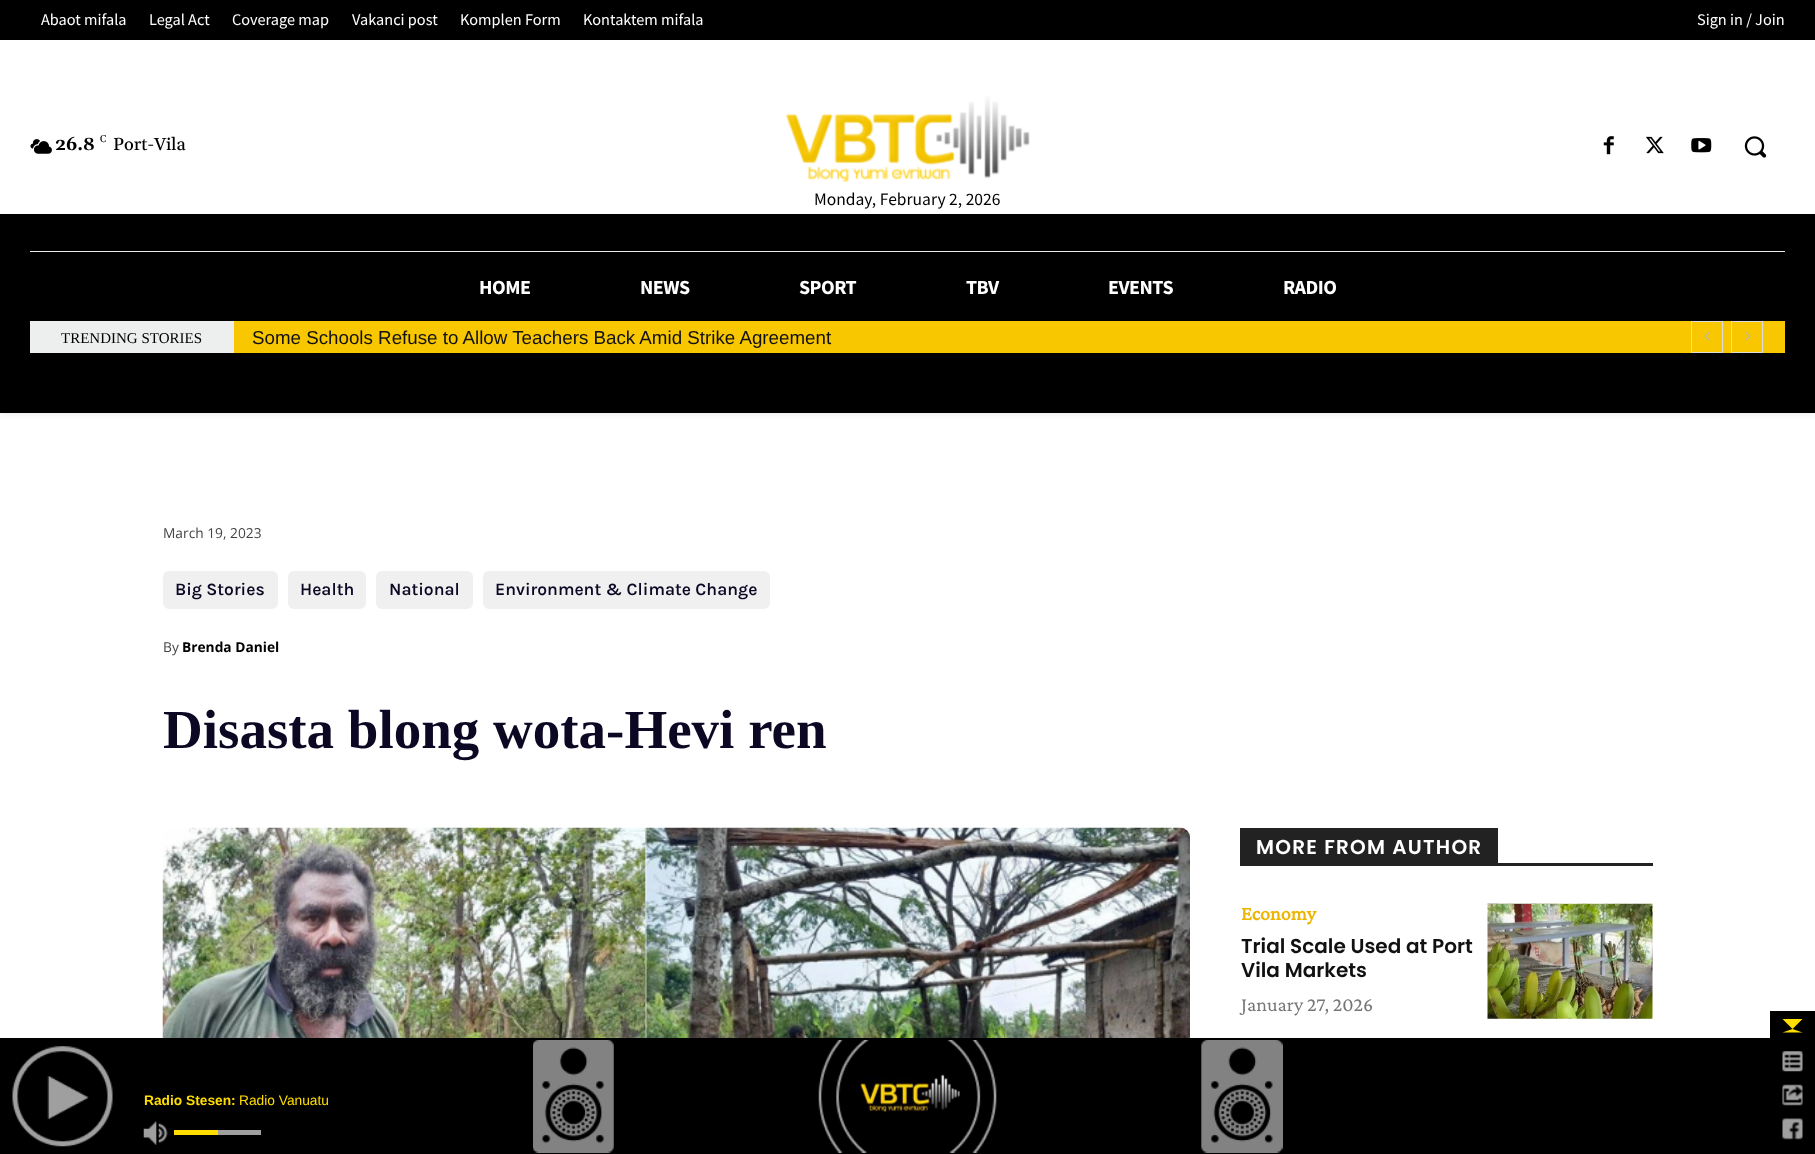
<!DOCTYPE html>
<meta charset="utf-8">
<style>body { margin: 0 } canvas { display: block }</style>
<canvas id="canvas" width="1815" height="1154"></canvas>
<script type="module">
  const canvas = document.getElementById("canvas");
  const g = canvas.getContext("2d");
  g.miterLimit = 4;
  g.fontKerning = "normal";
  function drawText(s, x, y, [font, color]) {
    g.font = font;
    g.fillStyle = color;
    g.fillText(s, x, y);
  }
  function fillBox(x, y, w, h, color) {
    g.fillStyle = color;
    g.fillRect(x, y, w, h);
  }
  function fillRounded(x, y, w, h, r, color) {
    g.fillStyle = color;
    g.beginPath();
    g.roundRect(x, y, w, h, r);
    g.fill();
  }
  async function drawPicture(src, x, y, w, h) {
    const img = new Image();
    img.src = src;
    await img.decode();
    g.drawImage(img, x, y, w, h);
  }

  const s1 = ["16.25px Source Sans Pro", "#FFFFFF"];
  const s2 = ["bold 17.5px Gelasio", "#000000"];
  const s3 = ["10px Gelasio", "#000000"];
  const s4 = ["500 17.5px Gelasio", "#000000"];
  const s5 = ["17.5px Source Sans Pro", "#000000"];
  const s6 = ["bold 20px Source Sans Pro", "#FFFFFF"];
  const s7 = ["15px Liberation Serif", "#000000"];
  const s8 = ["18.75px Liberation Sans", "#111111"];
  const s9 = ["13.75px Open Sans", "#444444"];
  const s10 = ["600 17.5px Karla", "#0C0824"];
  const s11 = ["bold 13.75px Open Sans", "#000000"];
  const s12 = ["bold 55px Liberation Serif", "#0C0824"];
  const s13 = ["600 20px Poppins", "#FFFFFF"];
  const s14 = ["bold 20px Crimson Pro", "#EDB500"];
  const s15 = ["600 20px Poppins", "#111111"];
  const s16 = ["20px Crimson Pro", "#767676"];
  const s17 = ["bold 13.75px Liberation Sans", "#FFDD00"];
  const s18 = ["13.75px Liberation Sans", "#FFDD00"];

  fillBox(0, 0, 1815, 1154, "#FFFFFF");
  fillBox(0, 0, 1815, 40, "#000000");
  drawText("Abaot mifala", 41, 25, s1);
  drawText("Legal Act", 149, 25, s1);
  drawText("Coverage map", 232, 25, s1);
  drawText("Vakanci post", 352, 25, s1);
  drawText("Komplen Form", 460, 25, s1);
  drawText("Kontaktem mifala", 583, 25, s1);
  drawText("Sign in / Join", 1697, 25, s1);
  await drawPicture("pic1.png", 30, 139, 22, 15);
  drawText("26.8", 55, 150, s2);
  drawText("C", 100, 142, s3);
  drawText("Port-Vila", 113, 150, s4);
  await drawPicture("pic2.png", 1603, 136, 11, 19);
  await drawPicture("pic3.png", 1646, 136, 18, 18);
  await drawPicture("pic4.png", 1691, 138, 21, 15);
  await drawPicture("pic5.png", 1744, 136, 23, 22);
  await drawPicture("pic6.png", 786, 96, 244, 86);
  drawText("Monday, February 2, 2026", 814, 205, s5);
  fillBox(0, 214, 1815, 199, "#000000");
  fillBox(30, 251, 1755, 1, "#EBEBEB");
  fillBox(234, 321, 1551, 32, "#F9C700");
  fillBox(30, 321, 204, 32, "#EDEEEE");
  g.strokeStyle = "#DCDCDC";
  g.strokeRect(1691.5, 321.5, 31, 31);
  await drawPicture("pic7.png", 1704, 331, 6, 10);
  g.strokeRect(1731.5, 321.5, 31, 31);
  await drawPicture("pic8.png", 1745, 332, 6, 9);
  g.save();
  g.beginPath();
  g.moveTo(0, 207);
  g.lineTo(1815, 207);
  g.lineTo(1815, 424);
  g.lineTo(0, 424);
  g.closePath();
  g.moveTo(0, 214);
  g.lineTo(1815, 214);
  g.lineTo(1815, 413);
  g.lineTo(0, 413);
  g.closePath();
  g.clip("evenodd");
  g.fillStyle = "rgba(0, 0, 0, 0.06)";
  g.filter = "blur(2.5px)";
  g.beginPath();
  g.rect(0, 216, 1815, 199);
  g.fill();
  g.filter = "none";
  g.restore();
  g.letterSpacing = "-0.5px";
  drawText("HOME", 479, 294, s6);
  drawText("NEWS", 640, 294, s6);
  drawText("SPORT", 799, 294, s6);
  drawText("TBV", 966, 294, s6);
  drawText("EVENTS", 1108, 294, s6);
  drawText("RADIO", 1283, 294, s6);
  g.letterSpacing = "0px";
  drawText("TRENDING STORIES", 61, 343, s7);
  drawText("Some Schools Refuse to Allow Teachers Back Amid Strike Agreement", 252, 344, s8);
  drawText("March 19, 2023", 163, 538, s9);
  fillRounded(163, 571, 115, 38, 6, "#F0F0F0");
  drawText("Big Stories", 175, 595, s10);
  fillRounded(288, 571, 78, 38, 6, "#F0F0F0");
  drawText("Health", 300, 595, s10);
  fillRounded(376, 571, 97, 38, 6, "#F0F0F0");
  drawText("National", 389, 595, s10);
  fillRounded(483, 571, 287, 38, 6, "#F0F0F0");
  drawText("Environment & Climate Change", 495, 595, s10);
  drawText("By", 163, 652, s9);
  drawText("Brenda Daniel", 182, 652, s11);
  drawText("Disasta blong wota-Hevi ren", 163, 748, s12);
  await drawPicture("pic9.png", 162, 827, 1028, 211);
  fillBox(1240, 863, 413, 3, "#222222");
  fillBox(1240, 828, 258, 35, "#222222");
  g.letterSpacing = "1.25px";
  drawText("MORE FROM AUTHOR", 1256, 854, s13);
  g.letterSpacing = "0px";
  drawText("Economy", 1241, 920, s14);
  drawText("Trial Scale Used at Port", 1241, 953, s15);
  drawText("Vila Markets", 1241, 977, s15);
  drawText("January 27, 2026", 1241, 1011, s16);
  await drawPicture("pic10.png", 1487, 903, 166, 116);
  fillBox(1770, 1011, 45, 27, "#000000");
  g.fillStyle = "#FFDD00";
  g.beginPath();
  g.moveTo(1782.5, 1019);
  g.lineTo(1802.5, 1019);
  g.lineTo(1792.5, 1029);
  g.closePath();
  g.moveTo(1802.5, 1032.5);
  g.lineTo(1782.5, 1032.5);
  g.lineTo(1792.5, 1029);
  g.closePath();
  g.fill();
  fillBox(0, 1038, 1815, 116, "#000000");
  await drawPicture("pic11.png", 12, 1046, 101, 101);
  await drawPicture("pic12.png", 1782, 1051, 21, 21);
  await drawPicture("pic13.png", 1782, 1084, 21, 22);
  await drawPicture("pic14.png", 143, 1121, 25, 24);
  fillBox(218, 1130, 43, 5, "#9F9F9F");
  fillBox(174, 1130, 44, 5, "#FFDD00");
  await drawPicture("pic15.png", 1782, 1118, 21, 22);
  await drawPicture("pic17.png", 860, 1074, 100, 39);
  await drawPicture("pic16.png", 533, 1040, 750, 113);
  drawText("Radio Stesen:", 144, 1105, s17);
  drawText("Radio Vanuatu", 239, 1105, s18);
</script>
